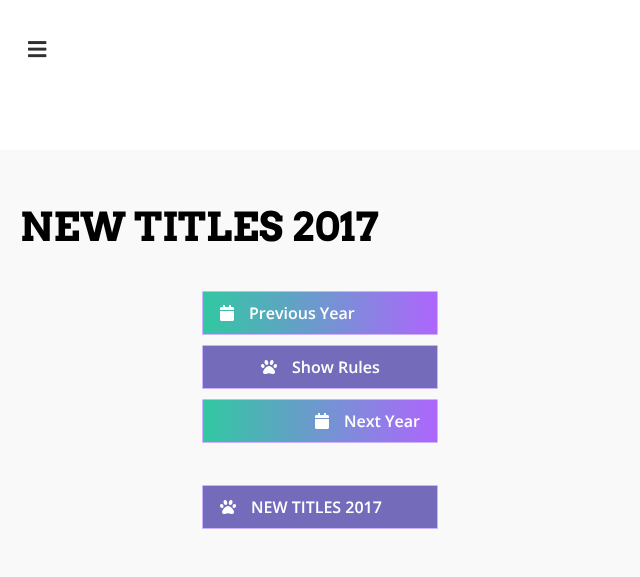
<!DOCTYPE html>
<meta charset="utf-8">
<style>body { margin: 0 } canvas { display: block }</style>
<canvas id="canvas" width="640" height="577"></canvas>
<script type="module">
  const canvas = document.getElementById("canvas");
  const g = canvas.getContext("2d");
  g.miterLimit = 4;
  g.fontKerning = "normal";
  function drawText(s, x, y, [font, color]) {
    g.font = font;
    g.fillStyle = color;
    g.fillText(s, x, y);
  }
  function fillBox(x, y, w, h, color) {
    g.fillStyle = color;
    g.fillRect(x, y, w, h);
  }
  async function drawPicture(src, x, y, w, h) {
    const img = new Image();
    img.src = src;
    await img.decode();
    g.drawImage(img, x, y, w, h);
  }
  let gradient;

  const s1 = ["bold 40px Arvo", "#000000"];
  const s2 = ["600 16px Open Sans", "#FFFFFF"];

  fillBox(0, 0, 640, 577, "#FFFFFF");
  await drawPicture("pic1.png", 28, 41, 19, 17);
  fillBox(0, 150, 640, 427, "#F9F9F9");
  drawText("NEW TITLES 2017", 20, 241, s1);
  gradient = g.createLinearGradient(203, 313, 437, 313);
  gradient.addColorStop(0, "#31C8A2");
  gradient.addColorStop(1, "#AE66FD");
  g.fillStyle = gradient;
  g.fillRect(203, 292, 234, 42);
  g.beginPath();
  g.roundRect(202.5, 291.5, 235, 43, 0.5);
  g.strokeStyle = "#CCB2FF";
  g.stroke();
  await drawPicture("pic2.png", 220, 305, 14, 16);
  drawText("Previous Year", 249, 319, s2);
  g.fillStyle = "#746BBA";
  g.beginPath();
  g.roundRect(202.5, 345.5, 235, 43, 0.5);
  g.fill();
  g.stroke();
  await drawPicture("pic3.png", 261, 360, 16, 14);
  drawText("Show Rules", 292, 373, s2);
  gradient = g.createLinearGradient(203, 421, 437, 421);
  gradient.addColorStop(0, "#31C8A2");
  gradient.addColorStop(1, "#AE66FD");
  g.fillStyle = gradient;
  g.fillRect(203, 400, 234, 42);
  g.beginPath();
  g.roundRect(202.5, 399.5, 235, 43, 0.5);
  g.stroke();
  await drawPicture("pic4.png", 315, 413, 14, 16);
  drawText("Next Year", 344, 427, s2);
  g.fillStyle = "#746BBA";
  g.beginPath();
  g.roundRect(202.5, 485.5, 235, 43, 0.5);
  g.fill();
  g.stroke();
  await drawPicture("pic3.png", 220, 500, 16, 14);
  drawText("NEW TITLES 2017", 251, 513, s2);
</script>
